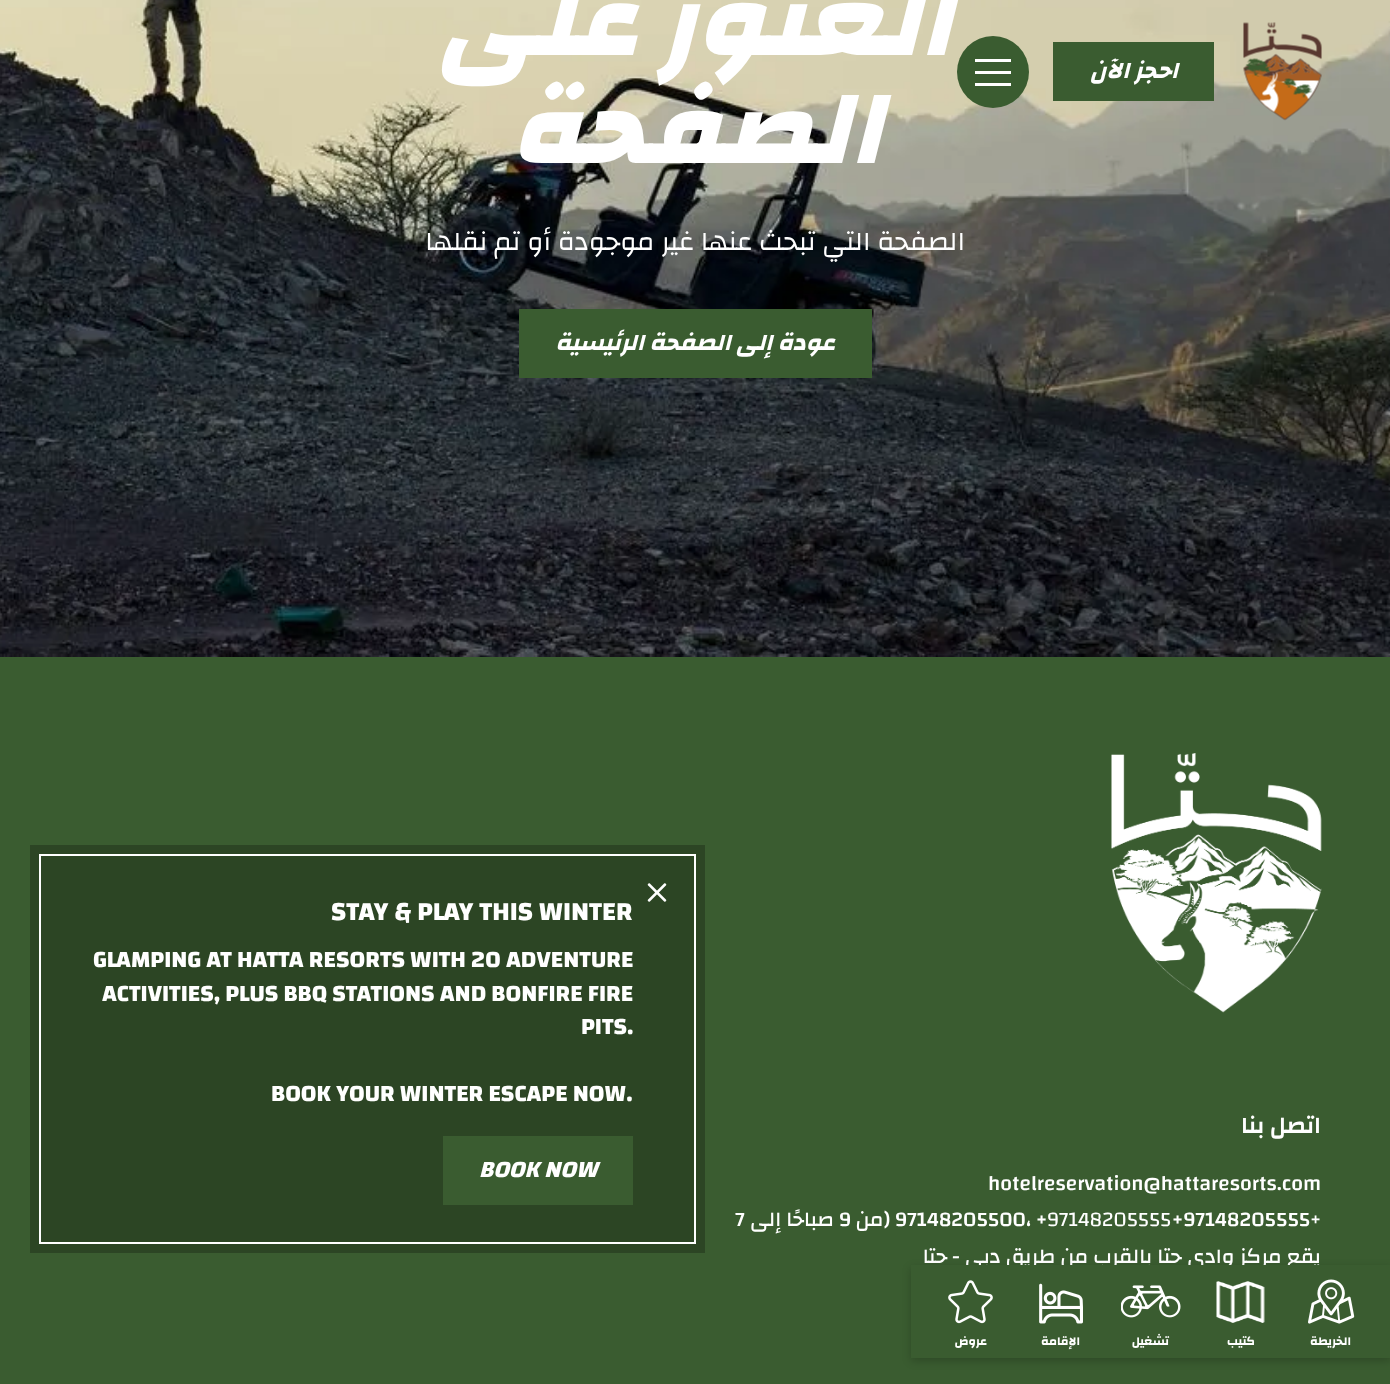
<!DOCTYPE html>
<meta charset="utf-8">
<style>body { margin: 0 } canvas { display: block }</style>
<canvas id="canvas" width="1390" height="1384"></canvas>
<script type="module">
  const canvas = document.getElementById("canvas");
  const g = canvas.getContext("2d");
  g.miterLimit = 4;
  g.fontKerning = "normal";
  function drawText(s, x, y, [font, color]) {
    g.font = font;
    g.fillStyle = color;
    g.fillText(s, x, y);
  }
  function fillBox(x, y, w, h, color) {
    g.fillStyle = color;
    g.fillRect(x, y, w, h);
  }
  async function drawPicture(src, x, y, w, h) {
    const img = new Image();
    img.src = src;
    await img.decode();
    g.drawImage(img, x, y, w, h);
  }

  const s1 = ["italic 800 108px Changa", "#FFFFFF"];
  const s2 = ["27px Changa", "#FFFFFF"];
  const s3 = ["italic bold 24px Changa", "#FFFFFF"];
  const s4 = ["bold 27px Changa", "#FFFFFF"];
  const s5 = ["bold 24px Changa", "#FFFFFF"];
  const s6 = ["600 24px Changa", "#FFFFFF"];
  const s7 = ["500 21px Changa", "#FFFFFF"];
  const s8 = ["21px Changa", "#FFFFFF"];
  const s9 = ["bold 12px Changa", "#FFFFFF"];

  fillBox(0, 0, 1390, 1384, "#FFFFFF");
  await drawPicture("pic1.png", 0, 0, 1390, 657);
  g.direction = "rtl";
  drawText("العثور على", 952, 55, s1);
  drawText("الصفحة", 882, 163, s1);
  drawText("الصفحة التي تبحث عنها غير موجودة أو تم نقلها", 965, 250, s2);
  fillBox(519, 309, 353, 69, "#3A5C30");
  drawText("عودة إلى الصفحة الرئيسية", 835, 350, s3);
  g.fillStyle = "#3A5C30";
  g.beginPath();
  g.arc(993, 72, 36, 0, Math.PI * 2);
  g.fill();
  fillBox(975, 59, 36, 3, "#FFFFFF");
  fillBox(975, 71, 36, 3, "#FFFFFF");
  fillBox(975, 83, 36, 3, "#FFFFFF");
  fillBox(1053, 42, 161, 59, "#3A5C30");
  drawText("احجز الآن", 1178, 78, s3);
  await drawPicture("pic2.png", 1243, 22, 79, 99);
  fillBox(0, 657, 1390, 727, "#3A5C30");
  fillBox(30, 845, 675, 408, "#2C4524");
  g.strokeStyle = "#FFFFFF";
  g.lineWidth = 2;
  g.strokeRect(40, 855, 655, 388);
  await drawPicture("pic3.png", 647, 883, 20, 19);
  g.direction = "ltr";
  drawText("STAY & PLAY THIS WINTER", 331, 920, s4);
  drawText("GLAMPING AT HATTA RESORTS WITH 20 ADVENTURE", 93, 967, s5);
  drawText("ACTIVITIES, PLUS BBQ STATIONS AND BONFIRE FIRE", 102, 1001, s5);
  drawText("PITS.", 581, 1034, s5);
  drawText("BOOK YOUR WINTER ESCAPE NOW.", 271, 1101, s5);
  fillBox(443, 1136, 190, 69, "#3A5C30");
  drawText("BOOK NOW", 479, 1177, s3);
  await drawPicture("pic4.png", 1111, 753, 211, 260);
  g.direction = "rtl";
  drawText("اتصل بنا", 1321, 1133, s6);
  g.direction = "ltr";
  drawText("hotelreservation@hattaresorts.com", 988, 1190, s7);
  drawText("7", 735, 1226, s7);
  g.direction = "rtl";
  drawText("صباحًا إلى", 834, 1226, s7);
  g.direction = "ltr";
  drawText("9", 839, 1226, s7);
  g.direction = "rtl";
  drawText("(من", 890, 1226, s7);
  g.direction = "ltr";
  drawText("97148205500، +", 895, 1226, s7);
  drawText("97148205555", 1047, 1226, s8);
  drawText("+97148205555", 1172, 1226, s7);
  drawText("+", 1310, 1226, s8);
  g.direction = "rtl";
  drawText("يقع مركز وادي حتا بالقرب من طريق دبي - حتا", 1321, 1263, s7);
  g.fillStyle = "rgba(0, 0, 0, 0.2)";
  g.filter = "blur(4px)";
  g.beginPath();
  g.rect(911, 1268, 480, 93);
  g.fill();
  g.filter = "none";
  fillBox(911, 1265, 479, 93, "#3A5C30");
  await drawPicture("pic5.png", 948, 1280, 45, 44);
  drawText("عروض", 987, 1345, s9);
  await drawPicture("pic6.png", 1039, 1283, 44, 41);
  drawText("الإقامة", 1080, 1345, s9);
  await drawPicture("pic7.png", 1121, 1285, 60, 33);
  drawText("تشغيل", 1169, 1345, s9);
  await drawPicture("pic8.png", 1216, 1281, 49, 42);
  drawText("كتيب", 1255, 1345, s9);
  await drawPicture("pic9.png", 1308, 1279, 47, 45);
  drawText("الخريطة", 1351, 1345, s9);
</script>
